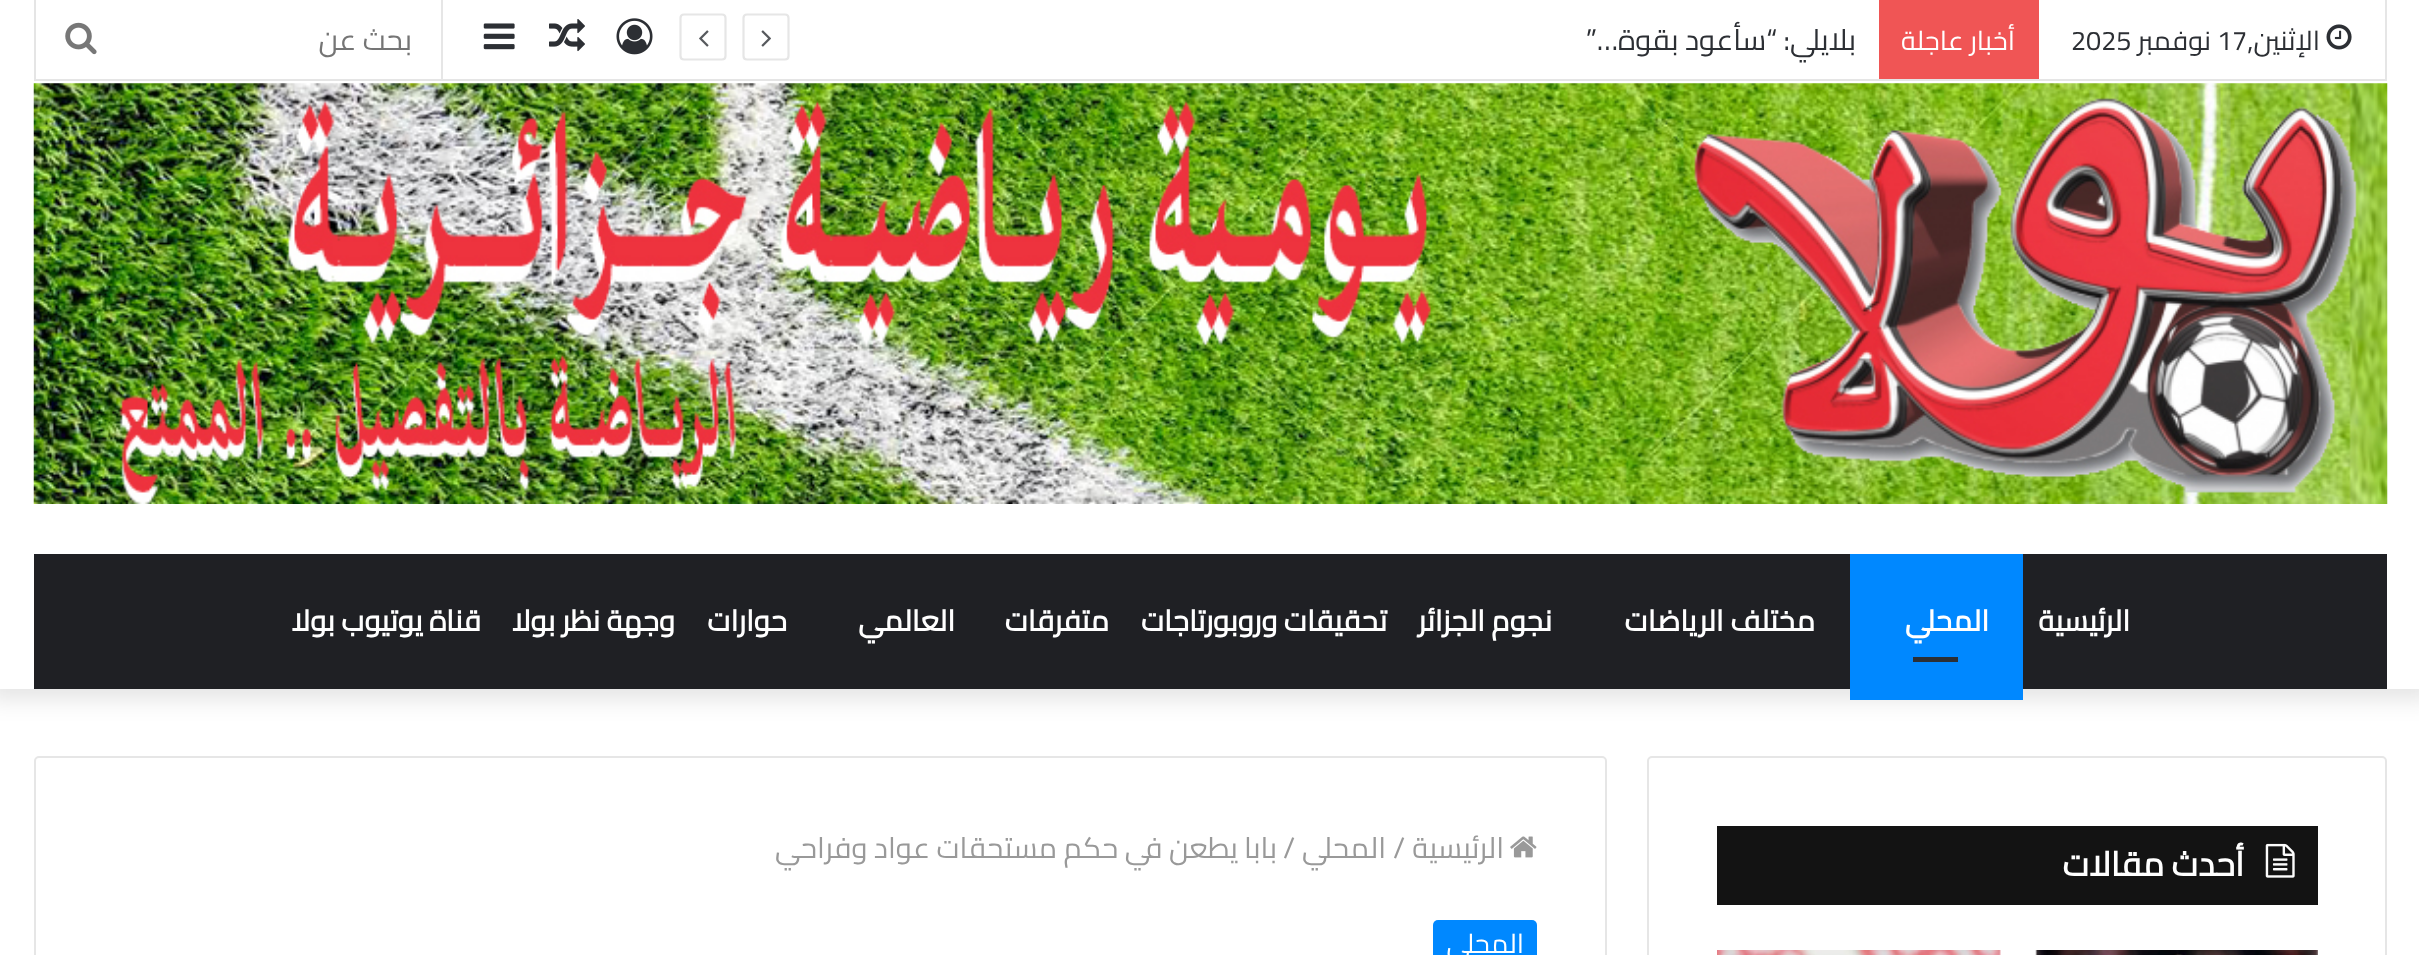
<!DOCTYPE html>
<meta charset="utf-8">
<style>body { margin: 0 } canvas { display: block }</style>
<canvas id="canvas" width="2419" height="955"></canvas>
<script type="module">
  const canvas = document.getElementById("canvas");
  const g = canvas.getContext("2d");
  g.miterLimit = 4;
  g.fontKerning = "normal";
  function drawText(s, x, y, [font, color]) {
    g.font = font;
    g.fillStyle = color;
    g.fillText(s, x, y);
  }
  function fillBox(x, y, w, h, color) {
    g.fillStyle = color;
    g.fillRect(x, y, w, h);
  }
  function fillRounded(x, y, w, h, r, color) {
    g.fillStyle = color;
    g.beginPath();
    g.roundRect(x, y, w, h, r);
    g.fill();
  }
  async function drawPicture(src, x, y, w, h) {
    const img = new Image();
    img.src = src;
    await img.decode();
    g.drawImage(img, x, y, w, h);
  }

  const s1 = ["27px Cairo", "#2C2F34"];
  const s2 = ["27px Cairo", "#FFFFFF"];
  const s3 = ["29.25px Cairo", "#2C2F34"];
  const s4 = ["29.25px Cairo", "#757575"];
  const s5 = ["bold 29.25px Cairo", "#FFFFFF"];
  const s6 = ["bold 33.75px Cairo", "#FFFFFF"];
  const s7 = ["29.25px Cairo", "#999999"];

  fillBox(0, 0, 2419, 955, "#FFFFFF");
  g.fillStyle = "rgba(0, 0, 0, 0.1)";
  g.filter = "blur(11px)";
  g.beginPath();
  g.rect(-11, -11, 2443, 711);
  g.fill();
  g.filter = "none";
  fillBox(0, 0, 2419, 689, "#FFFFFF");
  g.fillStyle = "#E6E6E6";
  g.beginPath();
  g.moveTo(2387, 0);
  g.lineTo(2387, 81);
  g.lineTo(2385, 79);
  g.lineTo(2385, 0);
  g.closePath();
  g.fill();
  g.fillStyle = "rgba(0, 0, 0, 0.1)";
  g.beginPath();
  g.moveTo(2387, 81);
  g.lineTo(34, 81);
  g.lineTo(36, 79);
  g.lineTo(2385, 79);
  g.closePath();
  g.fill();
  g.beginPath();
  g.moveTo(34, 81);
  g.lineTo(34, 0);
  g.lineTo(36, 0);
  g.lineTo(36, 79);
  g.closePath();
  g.fill();
  await drawPicture("pic1.png", 2326, 24, 26, 26);
  g.direction = "rtl";
  drawText("الإثنين,", 2320, 50, s1);
  g.direction = "ltr";
  drawText("17", 2217, 50, s1);
  g.direction = "rtl";
  drawText("نوفمبر", 2211, 50, s1);
  g.direction = "ltr";
  drawText("2025", 2071, 50, s1);
  fillBox(1879, 0, 160, 79, "#F05555");
  g.direction = "rtl";
  drawText("أخبار عاجلة", 2015, 50, s2);
  drawText("بلايلي: “سأعود بقوة…”", 1856, 50, s3);
  g.beginPath();
  g.moveTo(785, 59.5);
  g.lineTo(747, 59.5);
  g.bezierCurveTo(745, 59.5, 743.5, 58, 743.5, 56);
  g.lineTo(743.5, 18);
  g.bezierCurveTo(743.5, 16, 745, 14.5, 747, 14.5);
  g.lineTo(785, 14.5);
  g.bezierCurveTo(787, 14.5, 788.5, 16, 788.5, 18);
  g.lineTo(788.5, 56);
  g.bezierCurveTo(788.5, 58, 787, 59.5, 785, 59.5);
  g.closePath();
  g.strokeStyle = "#E6E6E6";
  g.lineWidth = 2.2;
  g.stroke();
  await drawPicture("pic2.png", 761, 30, 10, 17);
  g.beginPath();
  g.moveTo(722, 59.5);
  g.lineTo(684, 59.5);
  g.bezierCurveTo(682, 59.5, 680.5, 58, 680.5, 56);
  g.lineTo(680.5, 18);
  g.bezierCurveTo(680.5, 16, 682, 14.5, 684, 14.5);
  g.lineTo(722, 14.5);
  g.bezierCurveTo(724, 14.5, 725.5, 16, 725.5, 18);
  g.lineTo(725.5, 56);
  g.bezierCurveTo(725.5, 58, 724, 59.5, 722, 59.5);
  g.closePath();
  g.stroke();
  await drawPicture("pic3.png", 699, 30, 10, 17);
  await drawPicture("pic4.png", 616, 18, 37, 37);
  await drawPicture("pic5.png", 549, 19, 36, 33);
  await drawPicture("pic6.png", 483, 23, 32, 27);
  fillBox(441, 0, 2, 79, "#E6E6E6");
  drawText("بحث عن", 412, 50, s4);
  await drawPicture("pic7.png", 65, 22, 32, 33);
  await drawPicture("pic8.png", 33, 83, 2355, 421);
  fillBox(34, 554, 2353, 135, "#1F2024");
  drawText("الرئيسية", 2130, 631, s5);
  fillBox(1850, 554, 173, 146, "#0088FF");
  drawText("المحلي", 1989, 631, s5);
  fillBox(1913, 657, 45, 5, "#2C2F34");
  drawText("مختلف الرياضات", 1815, 631, s5);
  drawText("نجوم الجزائر", 1552, 631, s5);
  drawText("تحقيقات وروبورتاجات", 1387, 631, s5);
  drawText("متفرقات", 1109, 631, s5);
  drawText("العالمي", 955, 631, s5);
  drawText("حوارات", 787, 631, s5);
  drawText("وجهة نظر بولا", 675, 631, s5);
  drawText("قناة يوتيوب بولا", 481, 631, s5);
  g.beginPath();
  g.roundRect(1648, 757, 738, 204, 4);
  g.lineWidth = 2;
  g.stroke();
  fillBox(1717, 826, 601, 79, "#131313");
  await drawPicture("pic9.png", 2265, 843, 30, 35);
  drawText("أحدث مقالات", 2244, 876, s6);
  await drawPicture("pic10.png", 2035, 950, 283, 5);
  await drawPicture("pic11.png", 1717, 950, 284, 5);
  g.beginPath();
  g.roundRect(35, 757, 1571, 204, 4);
  g.stroke();
  await drawPicture("pic12.png", 1510, 836, 27, 22);
  drawText("الرئيسية", 1504, 858, s7);
  g.direction = "ltr";
  drawText("/", 1393, 858, s7);
  g.direction = "rtl";
  drawText("المحلي", 1386, 858, s7);
  g.direction = "ltr";
  drawText("/", 1283, 858, s7);
  g.direction = "rtl";
  drawText("بابا يطعن في حكم مستحقات عواد وفراحي", 1277, 858, s7);
  fillRounded(1433, 920, 104, 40, 5, "#0088FF");
  drawText("المحلي", 1524, 953, s2);
</script>
